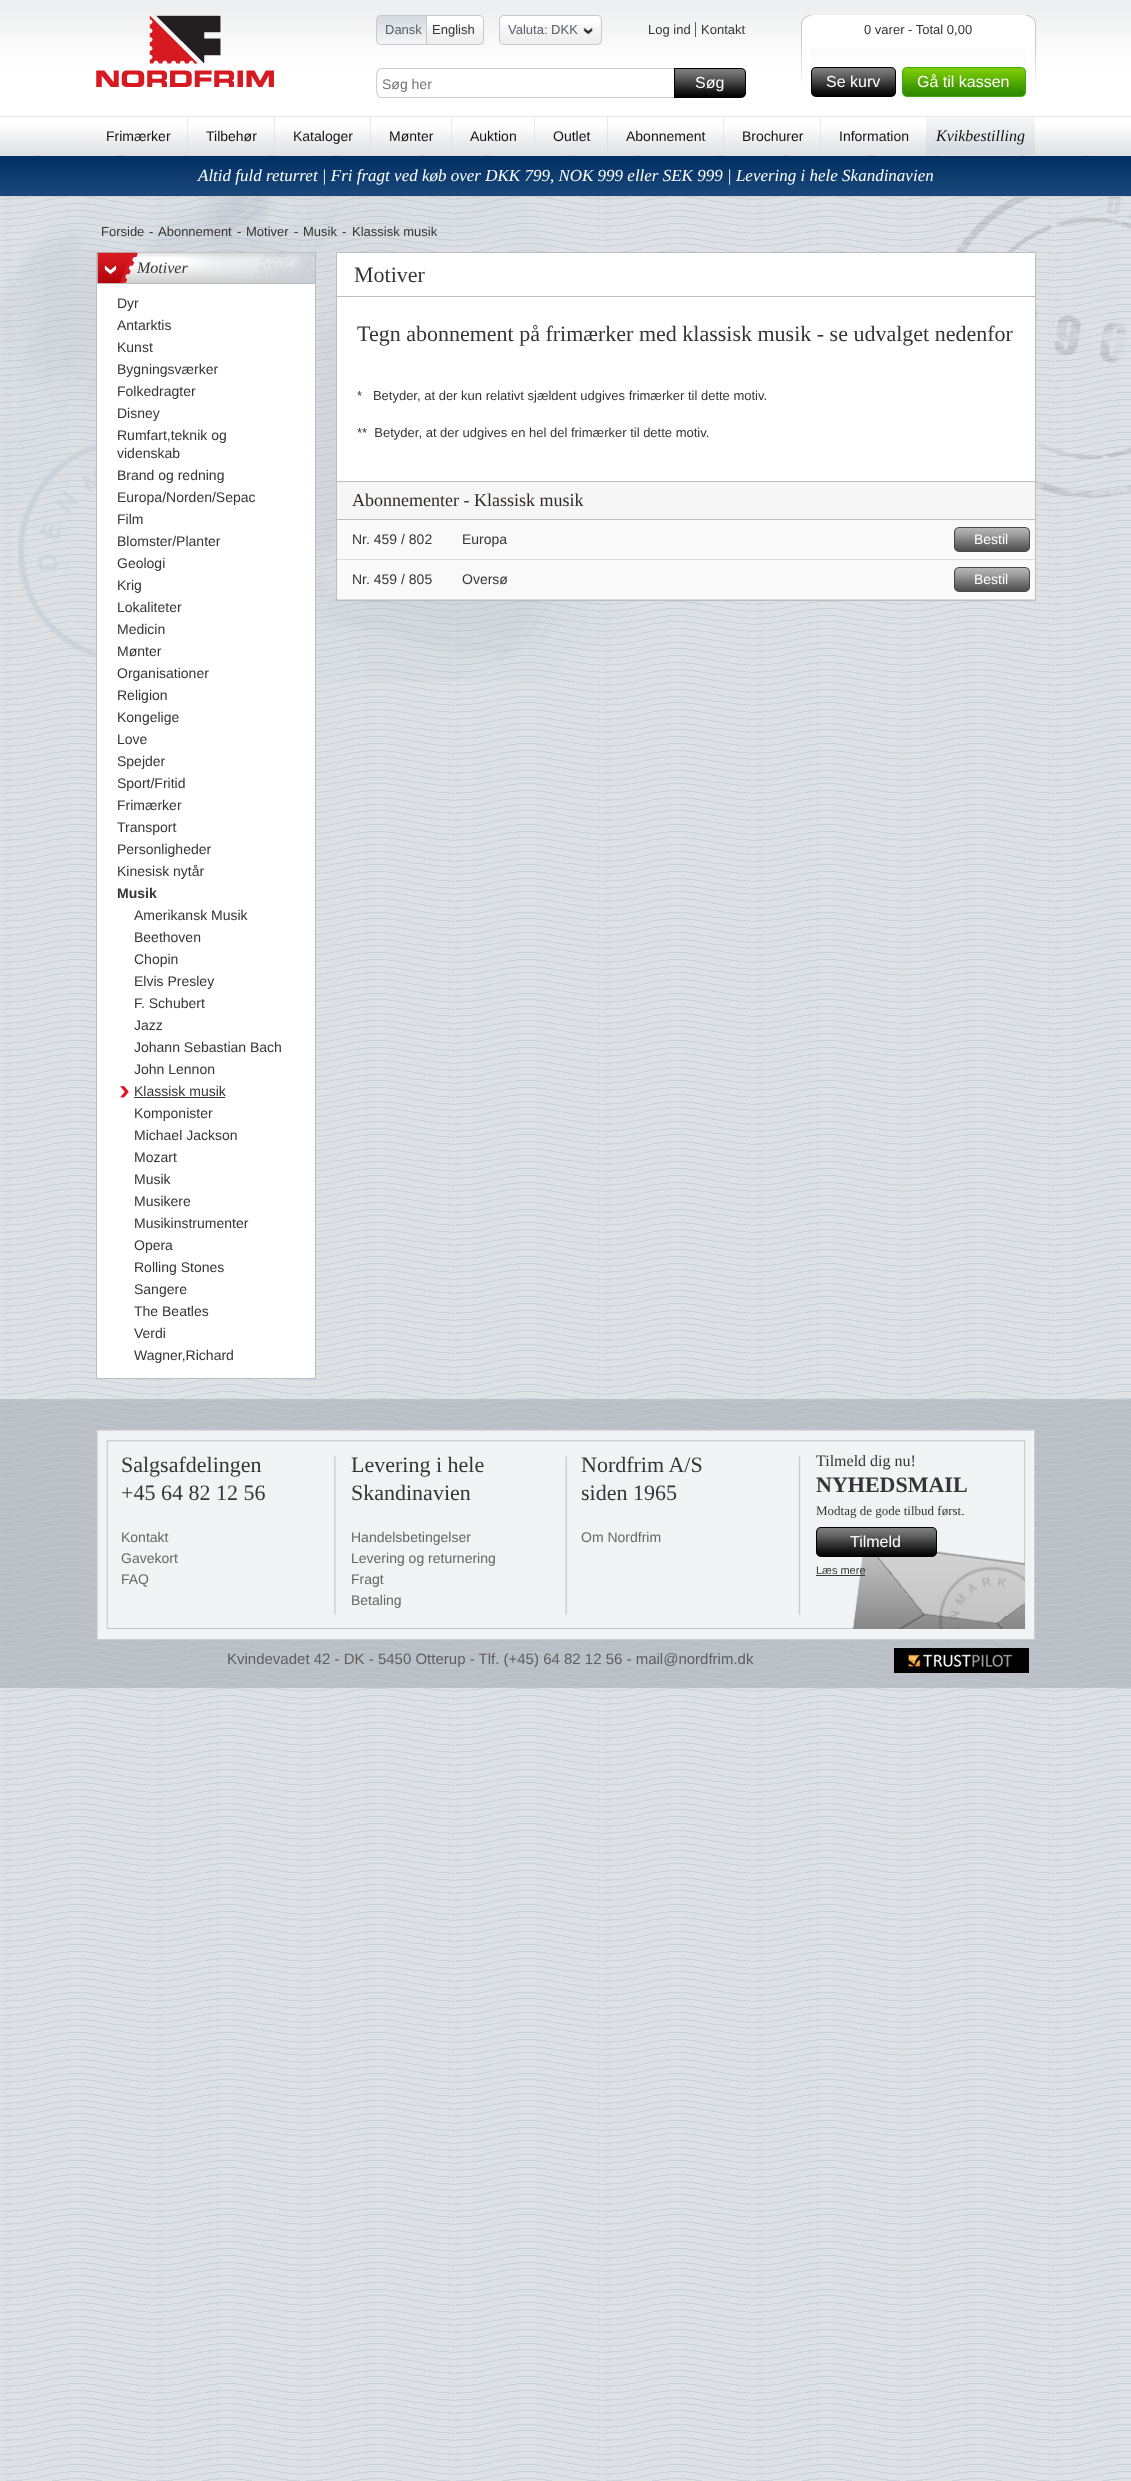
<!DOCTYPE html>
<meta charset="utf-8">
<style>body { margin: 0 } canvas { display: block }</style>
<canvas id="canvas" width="1131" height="2481"></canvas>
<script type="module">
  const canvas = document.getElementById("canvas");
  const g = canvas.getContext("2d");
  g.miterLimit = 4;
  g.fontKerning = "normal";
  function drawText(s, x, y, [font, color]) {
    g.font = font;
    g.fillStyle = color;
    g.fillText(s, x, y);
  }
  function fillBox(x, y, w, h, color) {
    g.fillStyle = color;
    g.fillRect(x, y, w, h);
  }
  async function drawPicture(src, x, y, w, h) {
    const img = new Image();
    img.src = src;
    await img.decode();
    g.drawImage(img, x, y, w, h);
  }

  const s1 = ["13px Liberation Sans", "#596069"];
  const s2 = ["13px Liberation Sans", "#353535"];
  const s3 = ["14px Liberation Sans", "#757575"];
  const s4 = ["16px Liberation Sans", "#FFFFFF"];
  const s5 = ["14px Liberation Sans", "#141213"];
  const s6 = ["italic 16px Liberation Serif", "#141213"];
  const s7 = ["italic 17px Liberation Serif", "#FFFFFF"];
  const s8 = ["italic 16px Liberation Serif", "#353535"];
  const s9 = ["14px Liberation Sans", "#353535"];
  const s10 = ["bold 14px Liberation Sans", "#353535"];
  const s11 = ["22px Liberation Serif", "#353535"];
  const s12 = ["18px Liberation Serif", "#312727"];
  const s13 = ["14px Liberation Sans", "#FFFFFF"];
  const s14 = ["14px Liberation Sans", "#666666"];
  const s15 = ["16px Liberation Serif", "#353535"];
  const s16 = ["bold 22px Liberation Serif", "#353535"];
  const s17 = ["13px Liberation Serif", "#353535"];
  const s18 = ["11px Liberation Sans", "#353535"];
  const s19 = ["15px Liberation Sans", "#5E5E5E"];

  fillBox(0, 0, 1131, 2481, "#FFFFFF");
  await drawPicture("pic1.png", 0, 0, 1131, 2481);
  await drawPicture("pic2.png", 0, 154, 1131, 528);
  await drawPicture("pic3.png", 0, 0, 1131, 155);
  fillBox(0, 196, 1131, 1, "#CFCFCF");
  await drawPicture("pic4.png", 96, 15, 178, 72);
  await drawPicture("pic5.png", 376, 15, 4, 30);
  await drawPicture("pic6.png", 380, 15, 46, 30);
  fillBox(426, 15, 1, 30, "#C7C9CB");
  drawText("Dansk", 385, 34, s1);
  await drawPicture("pic7.png", 427, 15, 53, 30);
  drawText("English", 432, 34, s2);
  await drawPicture("pic8.png", 480, 15, 4, 30);
  await drawPicture("pic9.png", 499, 15, 4, 30);
  await drawPicture("pic10.png", 503, 15, 95, 30);
  drawText("Valuta: DKK", 508, 34, s1);
  await drawPicture("pic11.png", 583, 27, 10, 8);
  await drawPicture("pic8.png", 598, 15, 4, 30);
  drawText("Log ind", 648, 34, s2);
  fillBox(695, 22, 1, 15, "#596069");
  drawText("Kontakt", 701, 34, s2);
  await drawPicture("pic12.png", 376, 68, 298, 30);
  drawText("Søg her", 382, 89, s3);
  await drawPicture("pic13.png", 675, 68, 65, 30);
  fillBox(674, 68, 1, 30, "#000000");
  drawText("Søg", 695, 88, s4);
  await drawPicture("pic14.png", 740, 68, 6, 30);
  await drawPicture("pic15.png", 801, 15, 10, 70);
  fillBox(811, 15, 215, 33, "#FFFFFF");
  drawText("0 varer - Total 0,00", 864, 34, s2);
  await drawPicture("pic16.png", 811, 67, 79, 30);
  drawText("Se kurv", 826, 87, s4);
  await drawPicture("pic14.png", 890, 67, 6, 30);
  await drawPicture("pic17.png", 902, 67, 118, 30);
  drawText("Gå til kassen", 917, 87, s4);
  await drawPicture("pic18.png", 1020, 67, 6, 30);
  await drawPicture("pic19.png", 1026, 15, 10, 70);
  drawText("Frimærker", 106, 141, s5);
  fillBox(187, 117, 1, 38, "rgba(219, 221, 223, 0.65)");
  drawText("Tilbehør", 206, 141, s5);
  fillBox(274, 117, 1, 38, "rgba(219, 221, 223, 0.65)");
  drawText("Kataloger", 293, 141, s5);
  fillBox(370, 117, 1, 38, "rgba(219, 221, 223, 0.65)");
  drawText("Mønter", 389, 141, s5);
  fillBox(451, 117, 1, 38, "rgba(219, 221, 223, 0.65)");
  drawText("Auktion", 470, 141, s5);
  fillBox(534, 117, 1, 38, "rgba(219, 221, 223, 0.65)");
  drawText("Outlet", 553, 141, s5);
  fillBox(607, 117, 1, 38, "rgba(219, 221, 223, 0.65)");
  drawText("Abonnement", 626, 141, s5);
  fillBox(723, 117, 1, 38, "rgba(219, 221, 223, 0.65)");
  drawText("Brochurer", 742, 141, s5);
  fillBox(820, 117, 1, 38, "rgba(219, 221, 223, 0.65)");
  drawText("Information", 839, 141, s5);
  await drawPicture("pic20.png", 926, 117, 109, 38);
  drawText("Kvikbestilling", 936, 141, s6);
  await drawPicture("pic21.png", 0, 156, 1131, 40);
  drawText("Altid fuld returret | Fri fragt ved køb over DKK 799, NOK 999 eller SEK 999 | Levering i hele Skandinavien", 198, 181, s7);
  drawText("Forside", 101, 236, s2);
  drawText("-", 149, 236, s2);
  drawText("Abonnement", 158, 236, s2);
  drawText("-", 237, 236, s2);
  drawText("Motiver", 246, 236, s2);
  drawText("-", 294, 236, s2);
  drawText("Musik", 303, 236, s2);
  drawText("-", 342, 236, s2);
  drawText("Klassisk musik", 352, 236, s2);
  fillBox(97, 284, 218, 1094, "#FFFFFF");
  fillBox(315, 252, 1, 1127, "#BABDC1");
  fillBox(96, 1378, 220, 1, "#BABDC1");
  fillBox(96, 252, 1, 1127, "#BABDC1");
  await drawPicture("pic22.png", 97, 252, 218, 32);
  await drawPicture("pic23.png", 104, 264, 13, 11);
  drawText("Motiver", 137, 273, s8);
  drawText("Dyr", 117, 308, s9);
  drawText("Antarktis", 117, 330, s9);
  drawText("Kunst", 117, 352, s9);
  drawText("Bygningsværker", 117, 374, s9);
  drawText("Folkedragter", 117, 396, s9);
  drawText("Disney", 117, 418, s9);
  drawText("Rumfart,teknik og", 117, 440, s9);
  drawText("videnskab", 117, 458, s9);
  drawText("Brand og redning", 117, 480, s9);
  drawText("Europa/Norden/Sepac", 117, 502, s9);
  drawText("Film", 117, 524, s9);
  drawText("Blomster/Planter", 117, 546, s9);
  drawText("Geologi", 117, 568, s9);
  drawText("Krig", 117, 590, s9);
  drawText("Lokaliteter", 117, 612, s9);
  drawText("Medicin", 117, 634, s9);
  drawText("Mønter", 117, 656, s9);
  drawText("Organisationer", 117, 678, s9);
  drawText("Religion", 117, 700, s9);
  drawText("Kongelige", 117, 722, s9);
  drawText("Love", 117, 744, s9);
  drawText("Spejder", 117, 766, s9);
  drawText("Sport/Fritid", 117, 788, s9);
  drawText("Frimærker", 117, 810, s9);
  drawText("Transport", 117, 832, s9);
  drawText("Personligheder", 117, 854, s9);
  drawText("Kinesisk nytår", 117, 876, s9);
  drawText("Musik", 117, 898, s10);
  drawText("Amerikansk Musik", 134, 920, s9);
  drawText("Beethoven", 134, 942, s9);
  drawText("Chopin", 134, 964, s9);
  drawText("Elvis Presley", 134, 986, s9);
  drawText("F. Schubert", 134, 1008, s9);
  drawText("Jazz", 134, 1030, s9);
  drawText("Johann Sebastian Bach", 134, 1052, s9);
  drawText("John Lennon", 134, 1074, s9);
  await drawPicture("pic24.png", 120, 1086, 9, 12);
  drawText("Klassisk musik", 134, 1096, s9);
  fillBox(134, 1097, 91, 1, "#353535");
  drawText("Komponister", 134, 1118, s9);
  drawText("Michael Jackson", 134, 1140, s9);
  drawText("Mozart", 134, 1162, s9);
  drawText("Musik", 134, 1184, s9);
  drawText("Musikere", 134, 1206, s9);
  drawText("Musikinstrumenter", 134, 1228, s9);
  drawText("Opera", 134, 1250, s9);
  drawText("Rolling Stones", 134, 1272, s9);
  drawText("Sangere", 134, 1294, s9);
  drawText("The Beatles", 134, 1316, s9);
  drawText("Verdi", 134, 1338, s9);
  drawText("Wagner,Richard", 134, 1360, s9);
  fillBox(337, 253, 698, 228, "#FFFFFF");
  g.strokeStyle = "#BABDC1";
  g.strokeRect(336.5, 252.5, 699, 348);
  fillBox(337, 296, 698, 1, "#BABDC1");
  drawText("Motiver", 354, 282, s11);
  drawText("Tegn abonnement på frimærker med klassisk musik - se udvalget nedenfor", 357, 341, s11);
  drawText("*   Betyder, at der kun relativt sjældent udgives frimærker til dette motiv.", 357, 400, s2);
  drawText("**  Betyder, at der udgives en hel del frimærker til dette motiv.", 357, 437, s2);
  fillBox(337, 482, 698, 37, "#F6F6F6");
  fillBox(337, 481, 698, 1, "#BABDC1");
  fillBox(337, 519, 698, 1, "#BABDC1");
  drawText("Abonnementer - Klassisk musik", 352, 506, s12);
  fillBox(337, 520, 698, 39, "#F9F9F9");
  fillBox(337, 559, 698, 1, "#DBDBDB");
  drawText("Nr. 459 / 802", 352, 544, s9);
  drawText("Europa", 462, 544, s9);
  await drawPicture("pic25.png", 954, 527, 70, 25);
  drawText("Bestil", 974, 544, s13);
  await drawPicture("pic26.png", 1024, 527, 6, 25);
  fillBox(337, 560, 698, 39, "#F9F9F9");
  fillBox(337, 599, 698, 1, "#DBDBDB");
  drawText("Nr. 459 / 805", 352, 584, s9);
  drawText("Oversø", 462, 584, s9);
  await drawPicture("pic25.png", 954, 567, 70, 25);
  drawText("Bestil", 974, 584, s13);
  await drawPicture("pic26.png", 1024, 567, 6, 25);
  await drawPicture("pic27.png", 0, 1399, 1131, 289);
  await drawPicture("pic28.png", 96, 1429, 939, 211);
  drawText("Salgsafdelingen", 121, 1472, s11);
  drawText("+45 64 82 12 56", 121, 1500, s11);
  drawText("Kontakt", 121, 1542, s14);
  drawText("Gavekort", 121, 1563, s14);
  drawText("FAQ", 121, 1584, s14);
  drawText("Levering i hele", 351, 1472, s11);
  drawText("Skandinavien", 351, 1500, s11);
  drawText("Handelsbetingelser", 351, 1542, s14);
  drawText("Levering og returnering", 351, 1563, s14);
  drawText("Fragt", 351, 1584, s14);
  drawText("Betaling", 351, 1605, s14);
  drawText("Nordfrim A/S", 581, 1472, s11);
  drawText("siden 1965", 581, 1500, s11);
  drawText("Om Nordfrim", 581, 1542, s14);
  g.save();
  g.beginPath();
  g.rect(816, 1451, 200, 50);
  g.clip();
  drawText("Tilmeld dig nu!", 816, 1466, s15);
  g.restore();
  drawText("NYHEDSMAIL", 816, 1492, s16);
  drawText("Modtag de gode tilbud først.", 816, 1515, s17);
  await drawPicture("pic29.png", 816, 1527, 115, 30);
  drawText("Tilmeld", 850, 1547, s4);
  await drawPicture("pic30.png", 931, 1527, 6, 30);
  drawText("Læs mere", 816, 1574, s18);
  fillBox(816, 1575, 49, 1, "#353535");
  drawText("Kvindevadet 42 - DK - 5450 Otterup - Tlf. (+45) 64 82 12 56 - mail@nordfrim.dk", 227, 1664, s19);
  await drawPicture("pic31.png", 894, 1648, 135, 25);
</script>
